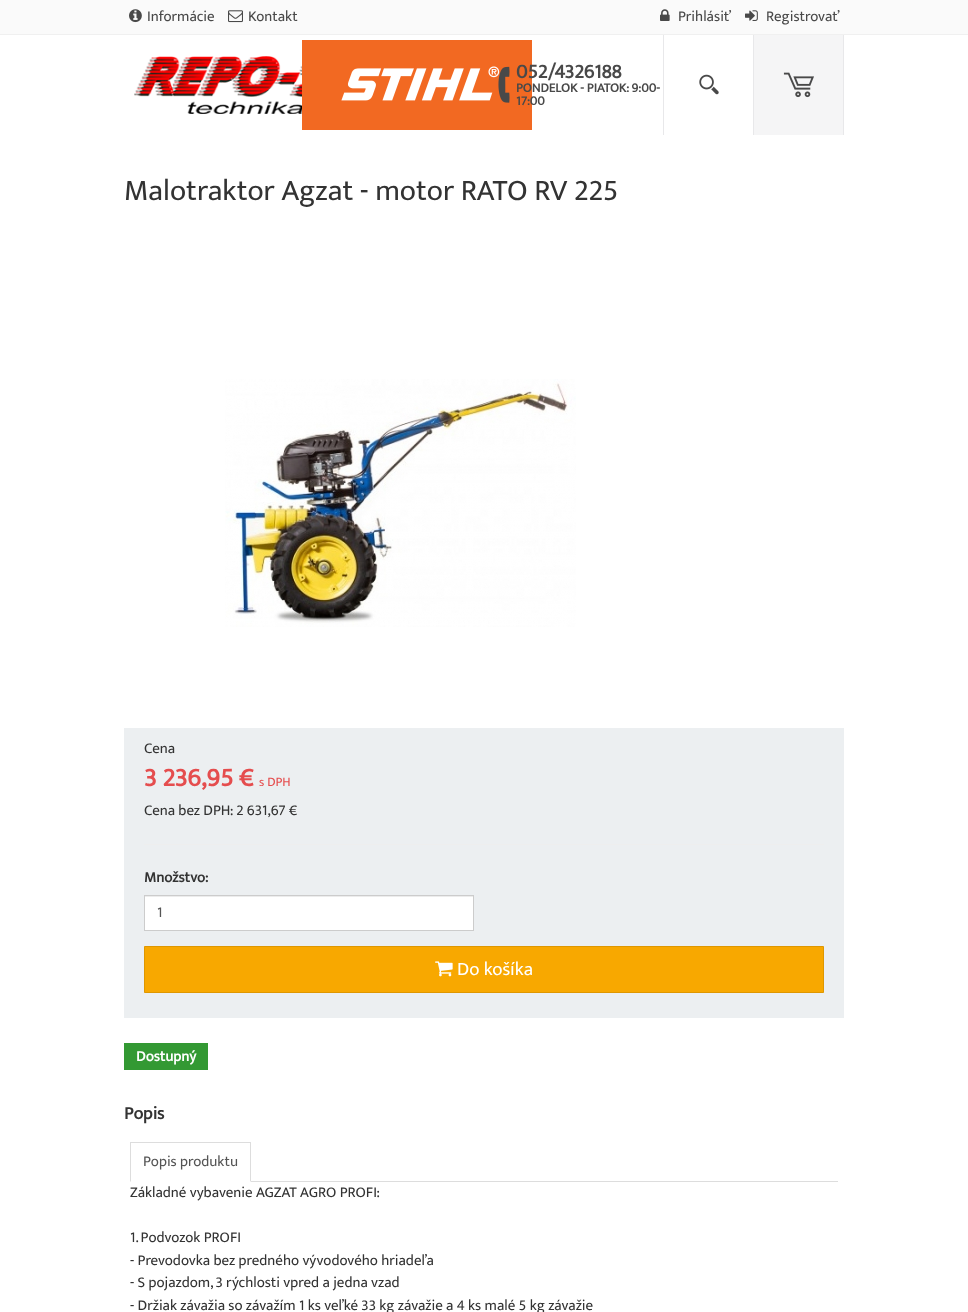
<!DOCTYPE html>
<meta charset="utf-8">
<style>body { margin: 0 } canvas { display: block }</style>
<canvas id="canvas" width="968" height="1312"></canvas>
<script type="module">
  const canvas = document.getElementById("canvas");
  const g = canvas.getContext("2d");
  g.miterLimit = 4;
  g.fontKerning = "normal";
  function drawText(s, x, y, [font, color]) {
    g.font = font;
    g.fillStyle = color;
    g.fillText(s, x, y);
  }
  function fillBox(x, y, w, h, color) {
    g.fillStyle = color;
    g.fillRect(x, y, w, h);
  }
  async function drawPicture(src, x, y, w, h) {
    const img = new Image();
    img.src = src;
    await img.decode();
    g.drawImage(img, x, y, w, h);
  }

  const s1 = ["15px Mukta Vaani", "#494949"];
  const s2 = ["bold 20px Mukta Vaani", "#494949"];
  const s3 = ["bold 13px Mukta Vaani", "#494949"];
  const s4 = ["30px Mukta Vaani", "#333333"];
  const s5 = ["15px Mukta Vaani", "#333333"];
  const s6 = ["bold 26px Mukta Vaani", "#E54D4E"];
  const s7 = ["13px Mukta Vaani", "#E54D4E"];
  const s8 = ["bold 15px Mukta Vaani", "#333333"];
  const s9 = ["15px Mukta Vaani", "#555555"];
  const s10 = ["19px Mukta Vaani", "#FFFFFF"];
  const s11 = ["bold 15px Mukta Vaani", "#FFFFFF"];
  const s12 = ["bold 18px Mukta Vaani", "#333333"];

  fillBox(0, 0, 968, 1312, "#FFFFFF");
  fillBox(0, 0, 968, 34, "#FAFAFA");
  fillBox(0, 34, 968, 1, "#F0F0F0");
  await drawPicture("pic1.png", 129, 9, 13, 14);
  drawText("Informácie", 147, 21, s1);
  await drawPicture("pic2.png", 228, 10, 15, 13);
  drawText("Kontakt", 248, 21, s1);
  await drawPicture("pic3.png", 660, 9, 10, 12);
  drawText("Prihlásiť", 678, 21, s1);
  await drawPicture("pic4.png", 745, 10, 13, 11);
  drawText("Registrovať", 766, 21, s1);
  await drawPicture("pic5.png", 134, 56, 168, 58);
  await drawPicture("pic6.png", 302, 40, 230, 90);
  await drawPicture("pic7.png", 498, 66, 12, 37);
  drawText("052/4326188", 516, 78, s2);
  drawText("PONDELOK - PIATOK: 9:00-", 516, 92, s3);
  drawText("17:00", 516, 105, s3);
  fillBox(663, 35, 1, 100, "#E8E8EA");
  await drawPicture("pic8.png", 699, 74, 20, 21);
  fillBox(754, 35, 89, 100, "#F5F5F6");
  fillBox(843, 35, 1, 100, "#E8E8EA");
  fillBox(753, 35, 1, 100, "#E8E8EA");
  await drawPicture("pic9.png", 783, 72, 31, 26);
  drawText("Malotraktor Agzat - motor RATO RV 225", 124, 200, s4);
  await drawPicture("pic10.png", 225, 379, 351, 248);
  fillBox(124, 728, 720, 290, "#ECEFF1");
  drawText("Cena", 144, 753, s5);
  drawText("3 236,95 €", 144, 786, s6);
  drawText("s DPH", 259, 786, s7);
  drawText("Cena bez DPH: 2 631,67 €", 144, 815, s5);
  fillBox(144, 844, 680, 1, "#EEEEEE");
  drawText("Množstvo:", 144, 882, s8);
  fillBox(145, 897, 328, 33, "#FFFFFF");
  fillBox(145, 896, 328, 1, "#ECECEC");
  g.strokeStyle = "#CCCCCC";
  g.strokeRect(144.5, 895.5, 329, 35);
  drawText("1", 157, 917, s9);
  g.fillStyle = "#F8A800";
  g.beginPath();
  g.rect(144.5, 946.5, 679, 46);
  g.fill();
  g.strokeStyle = "#DF9700";
  g.stroke();
  await drawPicture("pic11.png", 435, 961, 18, 16);
  drawText("Do košíka", 457, 975, s10);
  fillBox(124, 1043, 84, 27, "#339933");
  drawText("Dostupný", 136, 1061, s11);
  drawText("Popis", 124, 1119, s12);
  fillBox(251, 1181, 587, 1, "#DDDDDD");
  fillBox(130, 1142, 121, 1, "#DDDDDD");
  g.beginPath();
  g.moveTo(251, 1142);
  g.lineTo(251, 1182);
  g.lineTo(250, 1181);
  g.lineTo(250, 1143);
  g.closePath();
  g.fill();
  g.beginPath();
  g.moveTo(130, 1182);
  g.lineTo(130, 1142);
  g.lineTo(131, 1143);
  g.lineTo(131, 1181);
  g.closePath();
  g.fill();
  drawText("Popis produktu", 143, 1166, s9);
  drawText("Základné vybavenie AGZAT AGRO PROFI:", 130, 1197, s5);
  drawText("1. Podvozok PROFI", 130, 1242, s5);
  drawText("- Prevodovka bez predného vývodového hriadeľa", 130, 1265, s5);
  drawText("- S pojazdom, 3 rýchlosti vpred a jedna vzad", 130, 1287, s5);
  drawText("- Držiak závažia so závažím 1 ks veľké 33 kg závažie a 4 ks malé 5 kg závažie", 130, 1310, s5);
</script>
